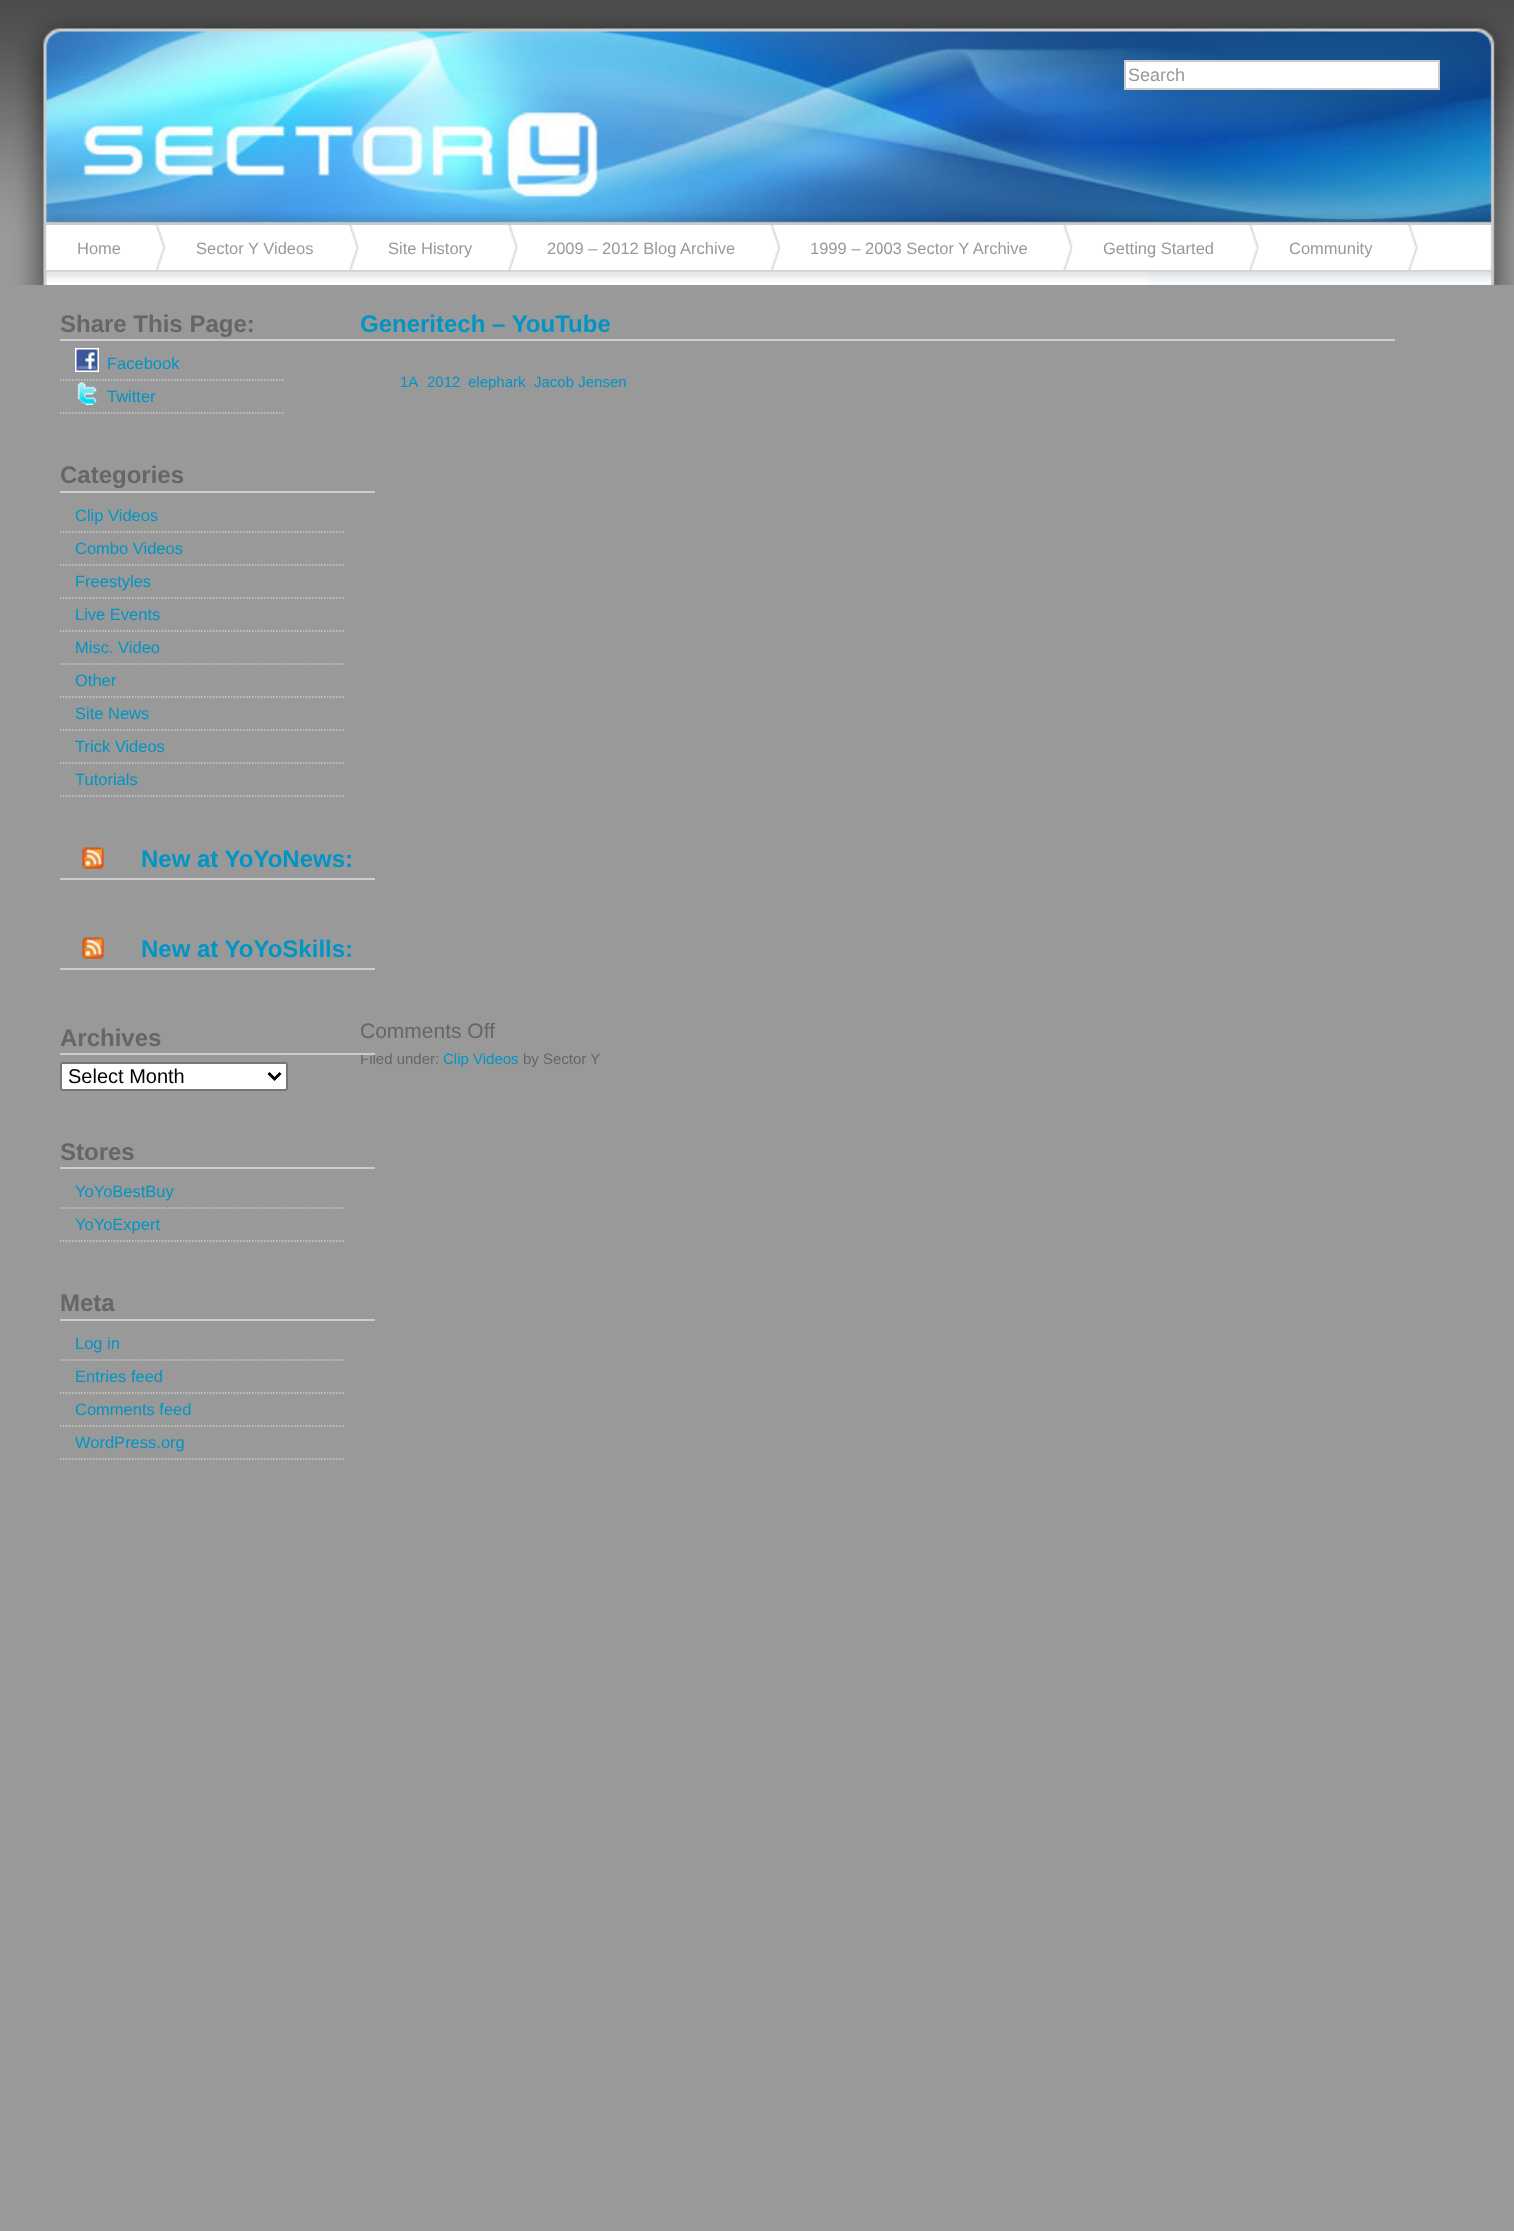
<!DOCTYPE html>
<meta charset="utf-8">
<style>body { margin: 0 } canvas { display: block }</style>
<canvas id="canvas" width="1514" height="2231"></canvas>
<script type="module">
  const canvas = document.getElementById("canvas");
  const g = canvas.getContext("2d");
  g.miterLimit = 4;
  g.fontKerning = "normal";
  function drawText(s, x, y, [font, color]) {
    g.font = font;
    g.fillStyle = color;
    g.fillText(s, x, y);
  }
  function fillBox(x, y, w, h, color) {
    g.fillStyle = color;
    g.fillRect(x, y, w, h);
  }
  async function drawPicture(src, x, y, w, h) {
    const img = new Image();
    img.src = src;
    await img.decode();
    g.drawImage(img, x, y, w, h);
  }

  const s1 = ["18px Liberation Sans", "#999999"];
  const s2 = ["16.5px Liberation Sans", "#999999"];
  const s3 = ["bold 24px Liberation Sans", "#666666"];
  const s4 = ["16.5px Liberation Sans", "#0195C5"];
  const s5 = ["bold 24px Liberation Sans", "#0195C5"];
  const s6 = ["15px Liberation Sans", "#666666"];
  const s7 = ["20px Liberation Sans", "#000000"];
  const s8 = ["15px Liberation Sans", "#0195C5"];
  const s9 = ["21px Liberation Sans", "#666666"];

  fillBox(0, 0, 1514, 2231, "#999999");
  await drawPicture("pic1.png", 0, 225, 1514, 60);
  await drawPicture("pic2.png", 0, 0, 1514, 225);
  g.fillStyle = "#FFFFFF";
  g.beginPath();
  g.rect(1125, 61, 314, 28);
  g.fill();
  g.strokeStyle = "#CCCCCC";
  g.lineWidth = 2;
  g.stroke();
  drawText("Search", 1128, 81, s1);
  await drawPicture("pic3.png", 45, 263, 1449, 22);
  await drawPicture("pic4.png", 46, 225, 119, 45);
  drawText("Home", 77, 254, s2);
  await drawPicture("pic5.png", 165, 225, 194, 45);
  drawText("Sector Y Videos", 196, 254, s2);
  await drawPicture("pic6.png", 358, 225, 160, 45);
  drawText("Site History", 388, 254, s2);
  await drawPicture("pic7.png", 517, 225, 263, 45);
  drawText("2009 – 2012 Blog Archive", 547, 254, s2);
  await drawPicture("pic8.png", 780, 225, 293, 45);
  drawText("1999 – 2003 Sector Y Archive", 810, 254, s2);
  await drawPicture("pic9.png", 1072, 225, 187, 45);
  drawText("Getting Started", 1103, 254, s2);
  await drawPicture("pic10.png", 1258, 225, 160, 45);
  drawText("Community", 1289, 254, s2);
  drawText("Share This Page:", 60, 332, s3);
  g.beginPath();
  g.moveTo(60, 380);
  g.lineTo(285, 380);
  g.lineWidth = 1.5;
  g.setLineDash([1.5, 1.5]);
  g.stroke();
  await drawPicture("pic11.png", 75, 348, 24, 24);
  drawText("Facebook", 107, 369, s4);
  g.beginPath();
  g.moveTo(60, 413);
  g.lineTo(285, 413);
  g.stroke();
  await drawPicture("pic12.png", 77, 382, 20, 23);
  drawText("Twitter", 107, 402, s4);
  fillBox(60, 491, 315, 2, "#CCCCCC");
  drawText("Categories", 60, 483, s3);
  g.beginPath();
  g.moveTo(60, 532);
  g.lineTo(345, 532);
  g.stroke();
  drawText("Clip Videos", 75, 521, s4);
  g.beginPath();
  g.moveTo(60, 565);
  g.lineTo(345, 565);
  g.stroke();
  drawText("Combo Videos", 75, 554, s4);
  g.beginPath();
  g.moveTo(60, 598);
  g.lineTo(345, 598);
  g.stroke();
  drawText("Freestyles", 75, 587, s4);
  g.beginPath();
  g.moveTo(60, 631);
  g.lineTo(345, 631);
  g.stroke();
  drawText("Live Events", 75, 620, s4);
  g.beginPath();
  g.moveTo(60, 664);
  g.lineTo(345, 664);
  g.stroke();
  drawText("Misc. Video", 75, 653, s4);
  g.beginPath();
  g.moveTo(60, 697);
  g.lineTo(345, 697);
  g.stroke();
  drawText("Other", 75, 686, s4);
  g.beginPath();
  g.moveTo(60, 730);
  g.lineTo(345, 730);
  g.stroke();
  drawText("Site News", 75, 719, s4);
  g.beginPath();
  g.moveTo(60, 763);
  g.lineTo(345, 763);
  g.stroke();
  drawText("Trick Videos", 75, 752, s4);
  g.beginPath();
  g.moveTo(60, 796);
  g.lineTo(345, 796);
  g.stroke();
  drawText("Tutorials", 75, 785, s4);
  fillBox(60, 878, 315, 2, "#CCCCCC");
  await drawPicture("pic13.png", 82, 847, 22, 22);
  drawText("New at YoYoNews:", 141, 867, s5);
  fillBox(60, 968, 315, 2, "#CCCCCC");
  await drawPicture("pic13.png", 82, 937, 22, 22);
  drawText("New at YoYoSkills:", 141, 957, s5);
  drawText("Filed under:", 360, 1064, s6);
  fillBox(60, 1053, 315, 2, "#CCCCCC");
  drawText("Archives", 60, 1046, s3);
  g.fillStyle = "#FFFFFF";
  g.beginPath();
  g.roundRect(61, 1063, 226, 27, 2);
  g.fill();
  g.strokeStyle = "#767676";
  g.lineWidth = 2;
  g.setLineDash([]);
  g.stroke();
  g.beginPath();
  g.moveTo(268.5, 1073);
  g.lineTo(274.5, 1079);
  g.lineTo(280.5, 1073);
  g.strokeStyle = "#000000";
  g.lineWidth = 3;
  g.stroke();
  drawText("Select Month", 68, 1083, s7);
  fillBox(60, 1167, 315, 2, "#CCCCCC");
  drawText("Stores", 60, 1160, s3);
  g.beginPath();
  g.moveTo(60, 1208);
  g.lineTo(345, 1208);
  g.strokeStyle = "#CCCCCC";
  g.lineWidth = 1.5;
  g.setLineDash([1.5, 1.5]);
  g.stroke();
  drawText("YoYoBestBuy", 75, 1197, s4);
  g.beginPath();
  g.moveTo(60, 1241);
  g.lineTo(345, 1241);
  g.stroke();
  drawText("YoYoExpert", 75, 1230, s4);
  fillBox(60, 1319, 315, 2, "#CCCCCC");
  drawText("Meta", 60, 1311, s3);
  g.beginPath();
  g.moveTo(60, 1360);
  g.lineTo(345, 1360);
  g.stroke();
  drawText("Log in", 75, 1349, s4);
  g.beginPath();
  g.moveTo(60, 1393);
  g.lineTo(345, 1393);
  g.stroke();
  drawText("Entries feed", 75, 1382, s4);
  g.beginPath();
  g.moveTo(60, 1426);
  g.lineTo(345, 1426);
  g.stroke();
  drawText("Comments feed", 75, 1415, s4);
  g.beginPath();
  g.moveTo(60, 1459);
  g.lineTo(345, 1459);
  g.stroke();
  drawText("WordPress.org", 75, 1448, s4);
  fillBox(60, 339, 1335, 2, "#CCCCCC");
  drawText("Generitech – YouTube", 360, 332, s5);
  drawText("1A", 400, 387, s8);
  drawText("2012", 427, 387, s8);
  drawText("elephark", 468, 387, s8);
  drawText("Jacob Jensen", 534, 387, s8);
  drawText("Comments Off", 360, 1038, s9);
  drawText("Clip Videos", 443, 1064, s8);
  drawText("by Sector Y", 523, 1064, s6);
</script>
